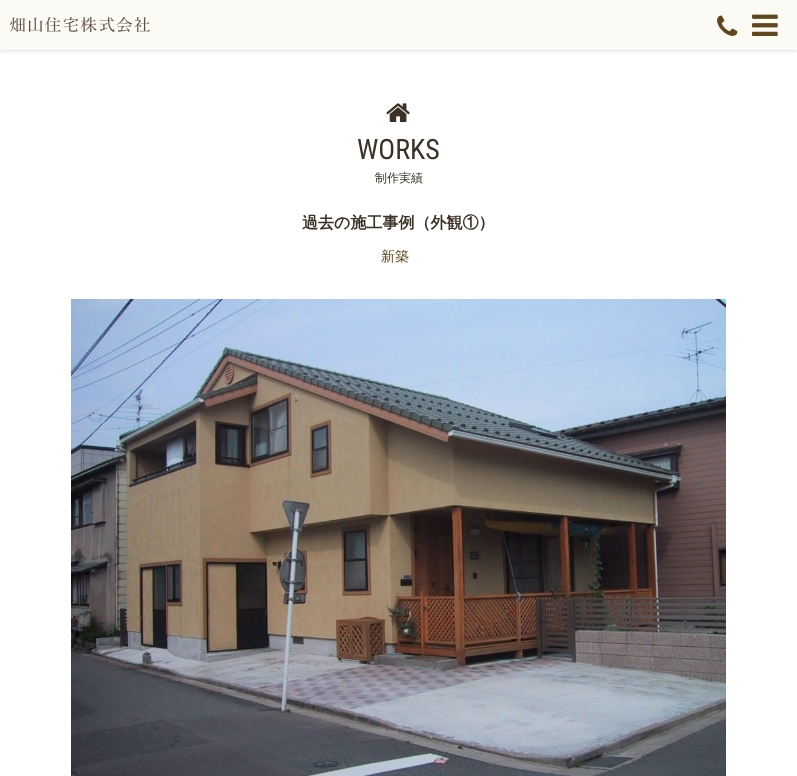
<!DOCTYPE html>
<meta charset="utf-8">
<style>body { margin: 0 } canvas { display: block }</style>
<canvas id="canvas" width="797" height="776"></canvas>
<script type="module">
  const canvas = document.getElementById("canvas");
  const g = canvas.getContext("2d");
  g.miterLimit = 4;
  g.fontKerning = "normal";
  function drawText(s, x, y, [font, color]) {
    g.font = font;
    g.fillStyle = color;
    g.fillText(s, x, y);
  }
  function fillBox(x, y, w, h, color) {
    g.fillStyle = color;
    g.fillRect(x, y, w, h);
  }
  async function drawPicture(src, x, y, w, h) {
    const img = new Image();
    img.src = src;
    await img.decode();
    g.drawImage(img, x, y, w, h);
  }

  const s1 = ["28px Roboto Condensed", "#3B3225"];
  const s2 = ["500 12px WenQuanYi Zen Hei", "#3B3225"];
  const s3 = ["bold 16px WenQuanYi Zen Hei", "#3B3225"];
  const s4 = ["500 14px WenQuanYi Zen Hei", "#61451E"];

  fillBox(0, 0, 797, 776, "#FFFFFF");
  g.fillStyle = "rgba(0, 0, 0, 0.2)";
  g.filter = "blur(2.5px)";
  g.beginPath();
  g.rect(0, 0, 797, 50);
  g.fill();
  g.filter = "none";
  fillBox(0, 0, 797, 50, "#FBFAF4");
  await drawPicture("pic1.png", 10, 17, 140, 16);
  await drawPicture("pic2.png", 717, 15, 21, 21);
  await drawPicture("pic3.png", 752, 14, 26, 22);
  await drawPicture("pic4.png", 386, 103, 24, 19);
  drawText("WORKS", 357, 159, s1);
  drawText("制作実績", 375, 182, s2);
  drawText("過去の施工事例（外観①）", 302, 228, s3);
  drawText("新築", 381, 261, s4);
  await drawPicture("pic5.png", 71, 299, 655, 477);
</script>
